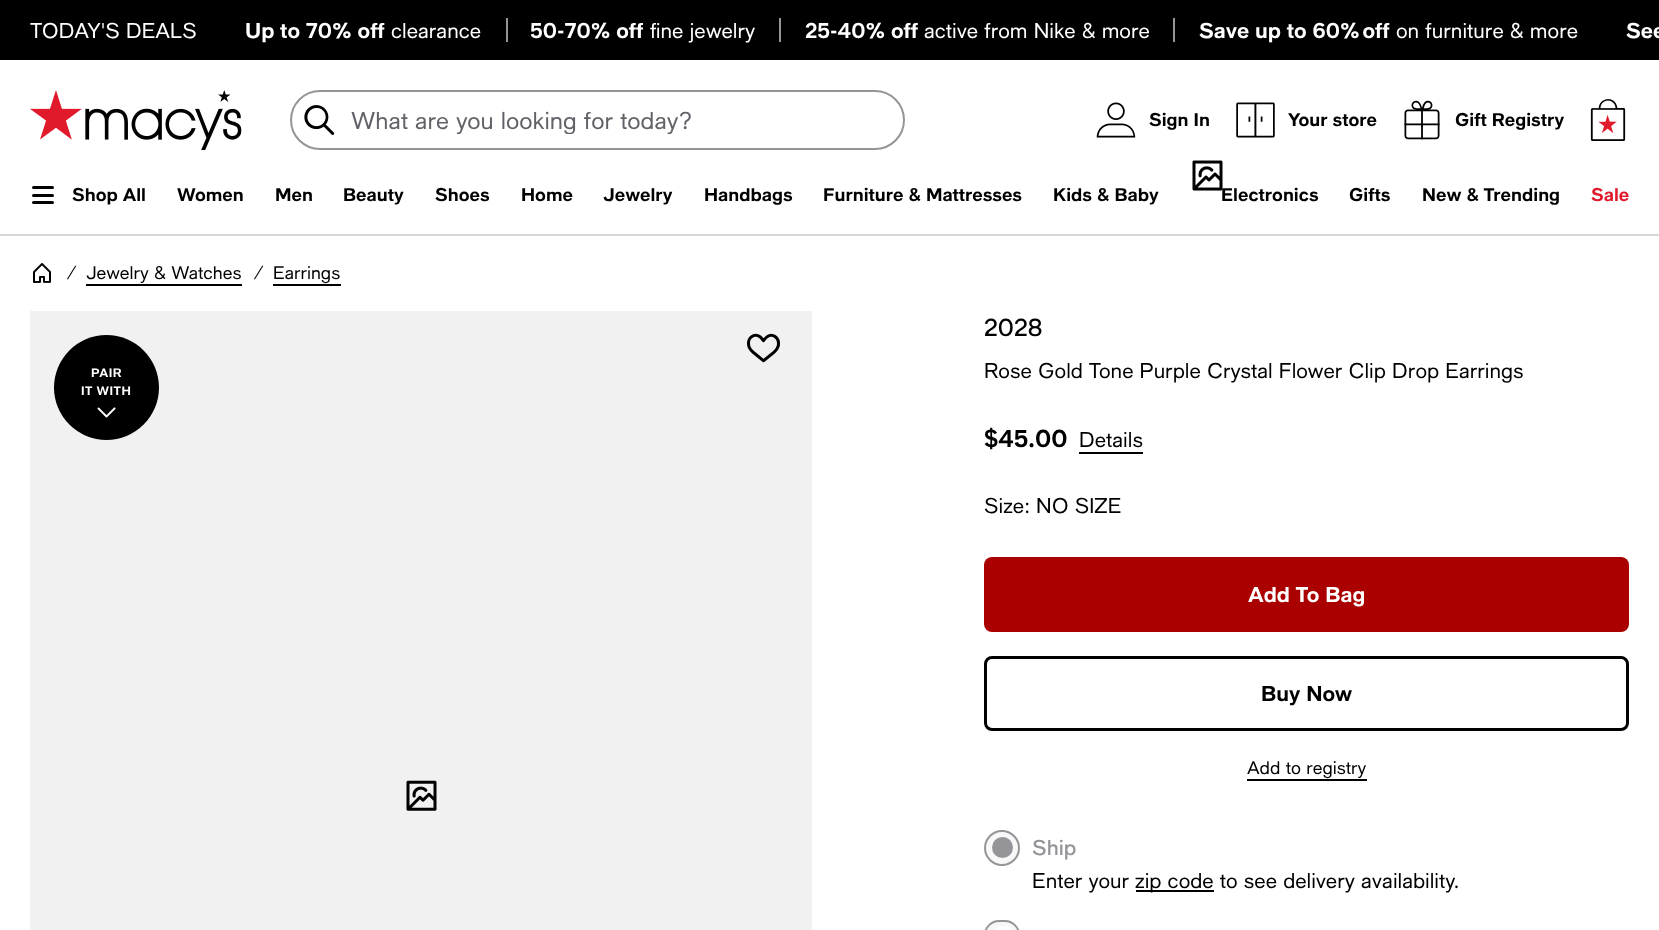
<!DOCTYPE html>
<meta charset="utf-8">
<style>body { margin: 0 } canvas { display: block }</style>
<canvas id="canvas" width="1659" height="930"></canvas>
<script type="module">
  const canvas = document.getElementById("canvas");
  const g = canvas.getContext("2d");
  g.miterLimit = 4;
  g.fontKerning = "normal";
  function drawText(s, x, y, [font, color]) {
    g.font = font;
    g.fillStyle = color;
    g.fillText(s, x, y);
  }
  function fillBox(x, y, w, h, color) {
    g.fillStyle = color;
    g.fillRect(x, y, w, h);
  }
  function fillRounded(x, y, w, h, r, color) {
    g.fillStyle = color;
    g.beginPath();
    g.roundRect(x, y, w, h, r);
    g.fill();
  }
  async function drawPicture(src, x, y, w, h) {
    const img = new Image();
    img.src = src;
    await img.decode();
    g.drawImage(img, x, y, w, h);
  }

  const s1 = ["21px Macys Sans", "#FFFFFF"];
  const s2 = ["bold 21px Macys Sans", "#FFFFFF"];
  const s3 = ["24px Macys Sans", "#626369"];
  const s4 = ["bold 18px Macys Sans", "#000000"];
  const s5 = ["bold 18px Macys Sans", "#E01A2B"];
  const s6 = ["italic 18px Macys Sans", "#000000"];
  const s7 = ["18px Macys Sans", "#000000"];
  const s8 = ["bold 12px Macys Sans", "#FFFFFF"];
  const s9 = ["500 24px Macys Sans", "#000000"];
  const s10 = ["21px Macys Sans", "#000000"];
  const s11 = ["bold 24px Macys Sans", "#000000"];
  const s12 = ["bold 21px Macys Sans", "#000000"];
  const s13 = ["500 21px Macys Sans", "#959499"];

  fillBox(0, 0, 1659, 930, "#FFFFFF");
  fillBox(0, 0, 1659, 60, "#000000");
  drawText("TODAY'S DEALS", 30, 38, s1);
  drawText("Up to 70% off", 245, 38, s2);
  drawText("clearance", 391, 38, s1);
  fillBox(506, 18, 2, 24, "#959499");
  drawText("50-70% off", 530, 38, s2);
  drawText("fine jewelry", 650, 38, s1);
  fillBox(779, 18, 2, 24, "#959499");
  drawText("25-40% off", 805, 38, s2);
  drawText("active from Nike & more", 924, 38, s1);
  fillBox(1173, 18, 2, 24, "#959499");
  drawText("Save up to 60% off", 1199, 38, s2);
  drawText("on furniture & more", 1396, 38, s1);
  drawText("See", 1626, 38, s2);
  await drawPicture("pic1.png", 30, 90, 212, 60);
  g.beginPath();
  g.roundRect(291, 91, 613, 58, 29);
  g.strokeStyle = "#959499";
  g.lineWidth = 2;
  g.stroke();
  await drawPicture("pic2.png", 304, 105, 31, 30);
  g.save();
  g.beginPath();
  g.rect(351, 107, 534, 27);
  g.clip();
  drawText("What are you looking for today?", 351, 129, s3);
  g.restore();
  await drawPicture("pic3.png", 1096, 102, 40, 36);
  drawText("Sign In", 1149, 126, s4);
  await drawPicture("pic4.png", 1236, 102, 39, 36);
  drawText("Your store", 1288, 126, s4);
  await drawPicture("pic5.png", 1404, 100, 36, 40);
  drawText("Gift Registry", 1455, 126, s4);
  await drawPicture("pic6.png", 1590, 99, 36, 42);
  fillBox(0, 234, 1659, 2, "#D6D6D6");
  await drawPicture("pic7.png", 1192, 160, 31, 31);
  fillRounded(32, 186, 22, 3, 1.5, "#000000");
  fillRounded(32, 194, 22, 3, 1.5, "#000000");
  fillRounded(32, 201, 22, 3, 1.5, "#000000");
  drawText("Shop All", 72, 201, s4);
  drawText("Women", 177, 201, s4);
  drawText("Men", 275, 201, s4);
  drawText("Beauty", 343, 201, s4);
  drawText("Shoes", 435, 201, s4);
  drawText("Home", 521, 201, s4);
  drawText("Jewelry", 603, 201, s4);
  drawText("Handbags", 704, 201, s4);
  drawText("Furniture & Mattresses", 823, 201, s4);
  drawText("Kids & Baby", 1053, 201, s4);
  drawText("Electronics", 1221, 201, s4);
  drawText("Gifts", 1349, 201, s4);
  drawText("New & Trending", 1422, 201, s4);
  drawText("Sale", 1591, 201, s5);
  await drawPicture("pic8.png", 33, 263, 18, 20);
  drawText("/", 66, 279, s6);
  drawText("Jewelry & Watches", 86, 279, s7);
  fillBox(86, 284, 156, 2, "#000000");
  drawText("/", 253, 279, s6);
  drawText("Earrings", 273, 279, s7);
  fillBox(273, 284, 68, 2, "#000000");
  fillBox(30, 311, 782, 619, "#F1F1F1");
  await drawPicture("pic9.png", 406, 780, 31, 31);
  await drawPicture("pic10.png", 747, 333, 33, 30);
  g.fillStyle = "#000000";
  g.beginPath();
  g.arc(106.5, 387.5, 52.5, 0, Math.PI * 2);
  g.fill();
  g.letterSpacing = "0.5px";
  drawText("PAIR", 91, 377, s8);
  drawText("IT WITH", 81, 395, s8);
  await drawPicture("pic11.png", 97, 407, 19, 11);
  g.letterSpacing = "0px";
  drawText("2028", 984, 336, s9);
  drawText("Rose Gold Tone Purple Crystal Flower Clip Drop Earrings", 984, 378, s10);
  drawText("$45.00", 984, 447, s11);
  drawText("Details", 1079, 447, s10);
  fillBox(1079, 452, 64, 2, "#000000");
  drawText("Size: NO SIZE", 984, 513, s10);
  fillRounded(984, 557, 645, 75, 8, "#AB0000");
  drawText("Add To Bag", 1248, 602, s2);
  g.beginPath();
  g.roundRect(985.5, 657.5, 642, 72, 6.5);
  g.strokeStyle = "#000000";
  g.lineWidth = 3;
  g.stroke();
  drawText("Buy Now", 1261, 701, s12);
  drawText("Add to registry", 1247, 774, s7);
  fillBox(1247, 779, 120, 2, "#000000");
  g.fillStyle = "#F8F8F8";
  g.beginPath();
  g.arc(1002, 848, 17, 0, Math.PI * 2);
  g.fill();
  g.strokeStyle = "#959499";
  g.lineWidth = 2;
  g.stroke();
  g.fillStyle = "#959499";
  g.beginPath();
  g.arc(1002.5, 847.5, 10.5, 0, Math.PI * 2);
  g.fill();
  drawText("Ship", 1032, 855, s13);
  drawText("Enter your", 1032, 888, s10);
  fillBox(1136, 890, 78, 2, "#000000");
  drawText("zip code to see delivery availability.", 1135, 888, s10);
  g.fillStyle = "#F8F8F8";
  g.beginPath();
  g.roundRect(985, 921, 34, 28, 17);
  g.fill();
  g.stroke();
  fillRounded(992, 927, 21, 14, 10.5, "#FFFFFF");
</script>
